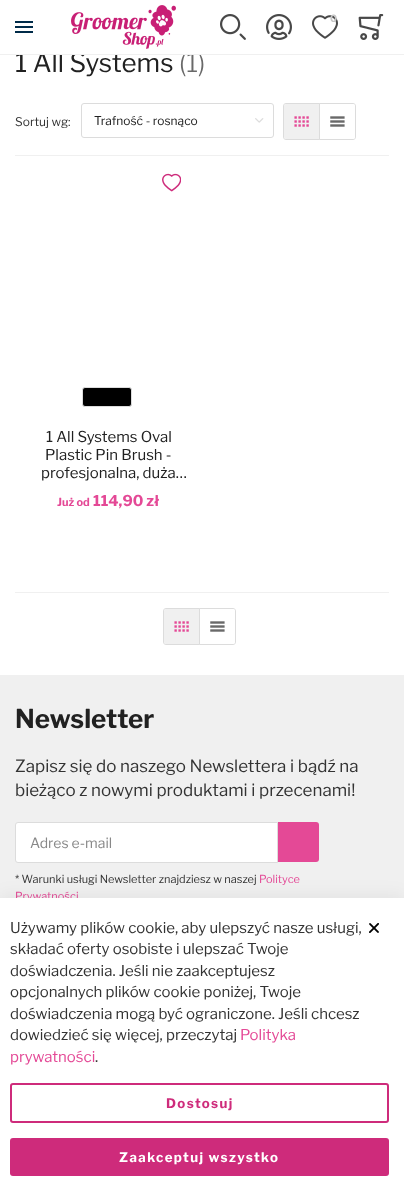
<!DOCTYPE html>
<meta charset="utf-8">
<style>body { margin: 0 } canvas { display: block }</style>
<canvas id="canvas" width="404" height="1196"></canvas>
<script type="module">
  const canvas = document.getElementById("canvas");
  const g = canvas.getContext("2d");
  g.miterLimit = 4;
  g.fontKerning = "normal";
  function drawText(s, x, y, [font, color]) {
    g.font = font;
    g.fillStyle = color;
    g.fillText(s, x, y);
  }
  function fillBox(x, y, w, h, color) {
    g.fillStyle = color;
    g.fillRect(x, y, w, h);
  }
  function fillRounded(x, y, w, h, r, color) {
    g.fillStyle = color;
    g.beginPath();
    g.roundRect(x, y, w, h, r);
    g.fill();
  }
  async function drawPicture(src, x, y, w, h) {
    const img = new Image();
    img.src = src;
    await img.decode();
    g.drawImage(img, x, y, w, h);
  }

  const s1 = ["100 26px Libre Franklin", "#212121"];
  const s2 = ["100 26px 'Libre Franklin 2'", "#696969"];
  const s3 = ["100 10px 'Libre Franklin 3'", "#C5C5C5"];
  const s4 = ["100 12px Libre Franklin", "#333333"];
  const s5 = ["100 12px Libre Franklin", "#212121"];
  const s6 = ["100 15px Libre Franklin", "#212121"];
  const s7 = ["100 11px 'Libre Franklin 3'", "#E44996"];
  const s8 = ["100 15px 'Libre Franklin 3'", "#E44996"];
  const s9 = ["100 26px 'Libre Franklin 3'", "#212121"];
  const s10 = ["100 17px Libre Franklin", "#333333"];
  const s11 = ["100 14px Libre Franklin", "#888888"];
  const s12 = ["100 11px Libre Franklin", "#333333"];
  const s13 = ["100 11px Libre Franklin", "#E44996"];
  const s14 = ["100 15px Libre Franklin", "#333333"];
  const s15 = ["100 15px Libre Franklin", "#E44996"];
  const s16 = ["100 13.25px 'Libre Franklin 3'", "#CE2B7B"];
  const s17 = ["100 13.25px 'Libre Franklin 3'", "#FFFFFF"];

  fillBox(0, 0, 404, 1196, "#FFFFFF");
  drawText("1 All Systems", 15, 72, s1);
  drawText("(1)", 179, 72, s2);
  fillBox(18, 52, 183, 2, "#FFFFFF");
  fillBox(0, 54, 404, 1, "#F0F0F0");
  await drawPicture("pic1.png", 71, 5, 105, 44);
  await drawPicture("pic2.png", 220, 14, 26, 26);
  await drawPicture("pic3.png", 266, 14, 26, 26);
  await drawPicture("pic4.png", 312, 15, 26, 24);
  drawText("0", 330, 22, s3);
  await drawPicture("pic5.png", 358, 14, 26, 26);
  fillBox(15, 26, 18, 2, "#002B49");
  fillBox(15, 21, 18, 2, "#002B49");
  fillBox(15, 31, 18, 2, "#002B49");
  fillBox(15, 155, 374, 1, "#F0F0F0");
  drawText("Sortuj wg:", 15, 126, s4);
  await drawPicture("pic6.png", 255, 118, 9, 5);
  g.beginPath();
  g.roundRect(81.5, 103.5, 192, 34, 2.5);
  g.strokeStyle = "#DCDCDC";
  g.stroke();
  drawText("Trafność - rosnąco", 94, 125, s5);
  g.beginPath();
  g.roundRect(283.5, 103.5, 36, 36, [2.5, 0, 0, 2.5]);
  g.stroke();
  g.fillStyle = "#F0F0F0";
  g.beginPath();
  g.roundRect(284, 104, 35, 35, [2, 0, 0, 2]);
  g.fill();
  await drawPicture("pic7.png", 294, 116, 15, 11);
  g.beginPath();
  g.roundRect(319.5, 103.5, 36, 36, [0, 2.5, 2.5, 0]);
  g.stroke();
  g.fillStyle = "#FFFFFF";
  g.beginPath();
  g.roundRect(320, 104, 35, 35, [0, 2, 2, 0]);
  g.fill();
  await drawPicture("pic8.png", 330, 116, 15, 11);
  await drawPicture("pic9.png", 162, 173, 19, 19);
  g.fillStyle = "#000000";
  g.beginPath();
  g.roundRect(82.5, 387.5, 49, 19, 2.5);
  g.fill();
  g.stroke();
  drawText("1 All Systems Oval", 46, 442, s6);
  drawText("Plastic Pin Brush -", 45, 460, s6);
  drawText("profesjonalna, duża…", 41, 478, s6);
  drawText("Już od", 57, 506, s7);
  drawText("114,90 zł", 93, 506, s8);
  fillBox(15, 592, 374, 1, "#F0F0F0");
  g.beginPath();
  g.roundRect(163.5, 608.5, 36, 36, [2.5, 0, 0, 2.5]);
  g.stroke();
  g.beginPath();
  g.roundRect(164, 609, 35, 35, [2, 0, 0, 2]);
  g.fill();
  await drawPicture("pic7.png", 174, 621, 15, 11);
  g.beginPath();
  g.roundRect(199.5, 608.5, 36, 36, [0, 2.5, 2.5, 0]);
  g.stroke();
  g.fillStyle = "#FFFFFF";
  g.beginPath();
  g.roundRect(200, 609, 35, 35, [0, 2, 2, 0]);
  g.fill();
  await drawPicture("pic8.png", 210, 621, 15, 11);
  fillBox(0, 675, 404, 223, "#F0F0F0");
  drawText("Newsletter", 15, 728, s9);
  drawText("Zapisz się do naszego Newslettera i bądź na", 15, 772, s10);
  drawText("bieżąco z nowymi produktami i przecenami!", 15, 796, s10);
  g.fillStyle = "#FFFFFF";
  g.beginPath();
  g.roundRect(15.5, 822.5, 262, 40, [2.5, 0, 0, 2.5]);
  g.fill();
  g.stroke();
  drawText("Adres e-mail", 30, 848, s11);
  g.fillStyle = "#E44996";
  g.beginPath();
  g.roundRect(278, 822, 41, 40, [0, 3, 3, 0]);
  g.fill();
  drawText("* Warunki usługi Newsletter znajdziesz w naszej", 15, 883, s12);
  drawText("Polityce", 259, 883, s13);
  drawText("Prywatności", 15, 900, s13);
  g.fillStyle = "rgba(0, 0, 0, 0.06)";
  g.filter = "blur(9px)";
  g.beginPath();
  g.rect(0, 896, 404, 298);
  g.fill();
  g.filter = "none";
  fillBox(0, 898, 404, 298, "#FFFFFF");
  drawText("Używamy plików cookie, aby ulepszyć nasze usługi,", 10, 933, s14);
  drawText("składać oferty osobiste i ulepszać Twoje", 10, 954, s14);
  drawText("doświadczenia. Jeśli nie zaakceptujesz", 10, 976, s14);
  drawText("opcjonalnych plików cookie poniżej, Twoje", 10, 997, s14);
  drawText("doświadczenia mogą być ograniczone. Jeśli chcesz", 10, 1019, s14);
  drawText("dowiedzieć się więcej, przeczytaj", 10, 1040, s14);
  drawText("Polityka", 240, 1040, s15);
  drawText("prywatności", 10, 1062, s15);
  drawText(".", 95, 1062, s14);
  g.beginPath();
  g.roundRect(11, 1084, 377, 38, 2);
  g.strokeStyle = "#CE2B7B";
  g.lineWidth = 2;
  g.stroke();
  g.letterSpacing = "1.4px";
  drawText("Dostosuj", 166, 1108, s16);
  fillRounded(10, 1138, 379, 38, 3, "#CE2B7B");
  drawText("Zaakceptuj wszystko", 119, 1162, s17);
  await drawPicture("pic10.png", 369, 923, 10, 10);
</script>
